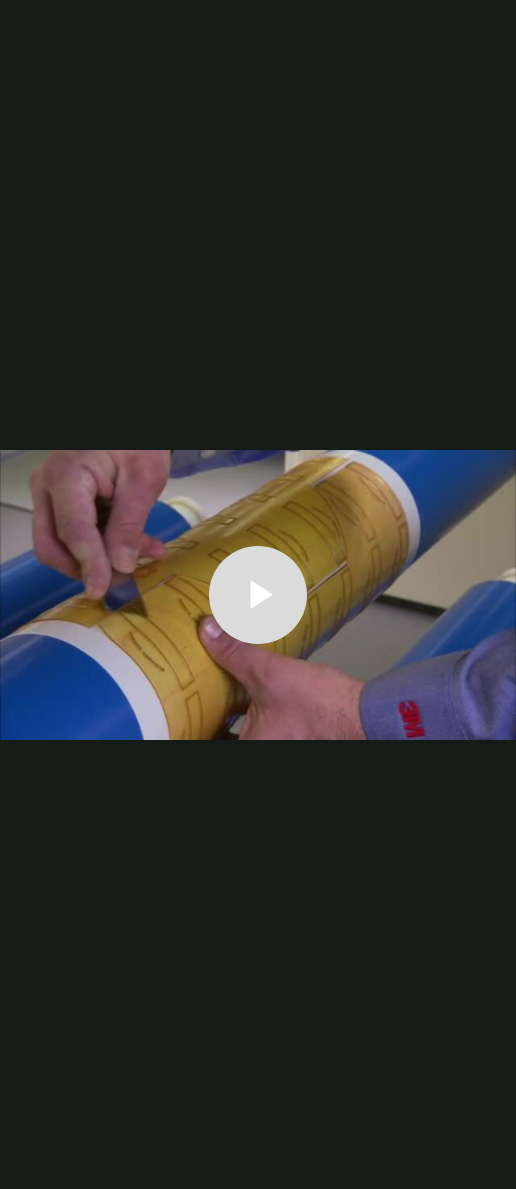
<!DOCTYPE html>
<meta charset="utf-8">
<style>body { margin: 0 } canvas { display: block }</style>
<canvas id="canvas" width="516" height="1189"></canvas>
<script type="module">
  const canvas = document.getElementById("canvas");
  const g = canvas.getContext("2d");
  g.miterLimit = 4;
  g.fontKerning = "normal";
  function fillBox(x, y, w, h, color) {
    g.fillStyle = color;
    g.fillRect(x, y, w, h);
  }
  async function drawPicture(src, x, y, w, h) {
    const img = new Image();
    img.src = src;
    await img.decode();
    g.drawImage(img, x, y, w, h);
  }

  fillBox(0, 0, 516, 1189, "#151B17");
  await drawPicture("pic1.png", 0, 450, 516, 290);
  g.fillStyle = "#DBDBDB";
  g.beginPath();
  g.arc(258, 595, 49, 0, Math.PI * 2);
  g.fill();
  g.fillStyle = "#FFFFFF";
  g.beginPath();
  g.moveTo(250.5, 580);
  g.lineTo(250.5, 609);
  g.lineTo(273, 594.5);
  g.closePath();
  g.fill();
</script>
